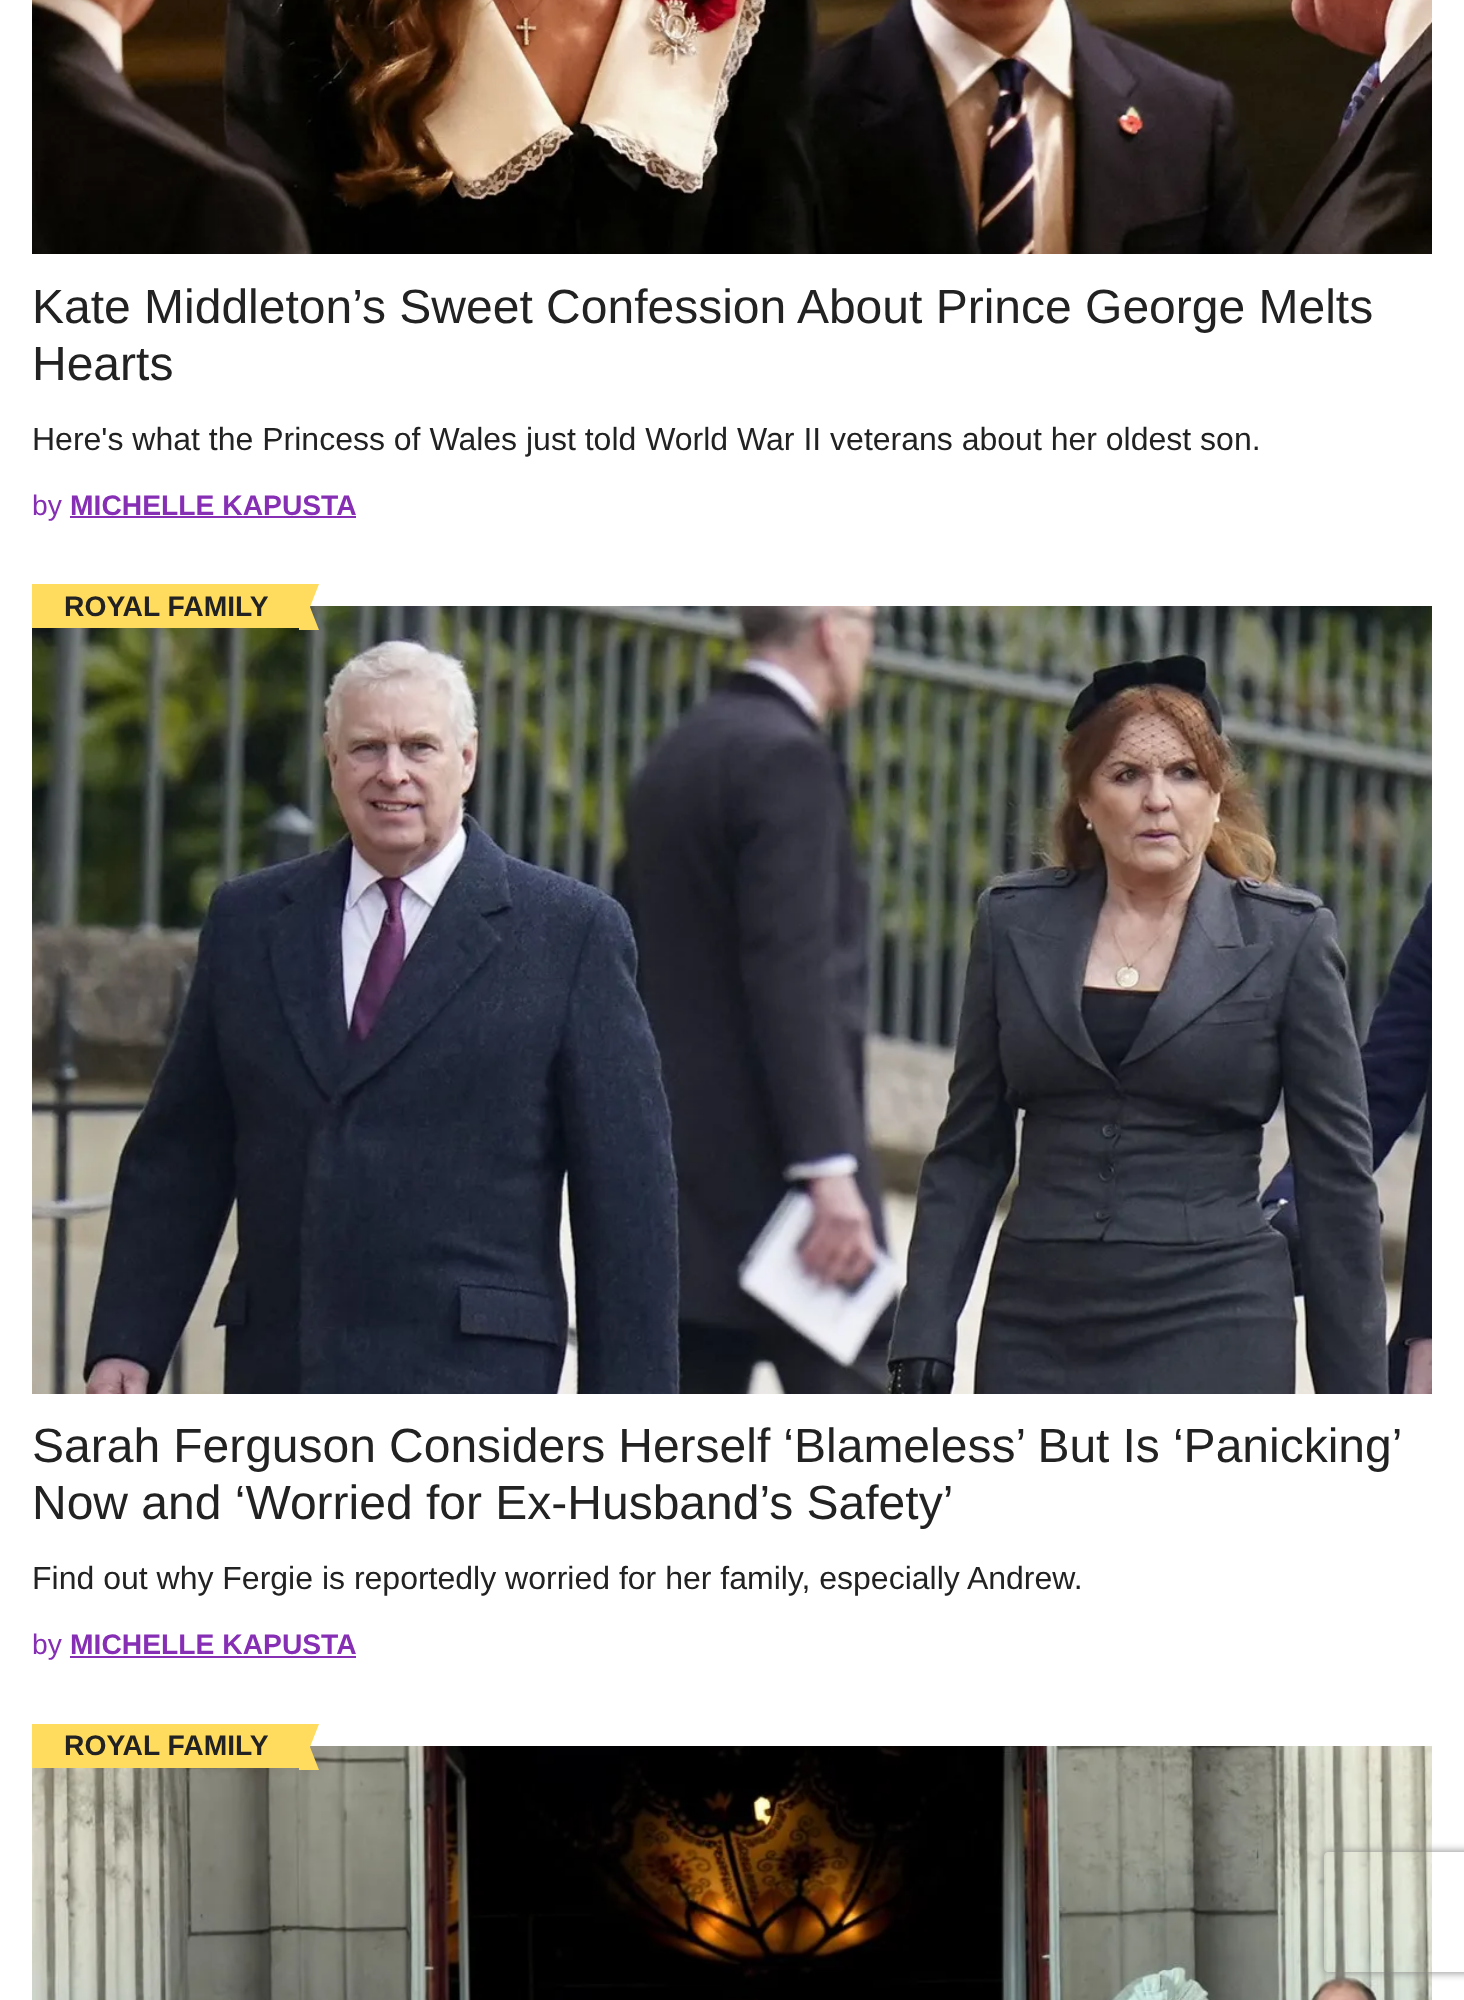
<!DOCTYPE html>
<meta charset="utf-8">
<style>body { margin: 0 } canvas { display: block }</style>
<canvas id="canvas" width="1464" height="2000"></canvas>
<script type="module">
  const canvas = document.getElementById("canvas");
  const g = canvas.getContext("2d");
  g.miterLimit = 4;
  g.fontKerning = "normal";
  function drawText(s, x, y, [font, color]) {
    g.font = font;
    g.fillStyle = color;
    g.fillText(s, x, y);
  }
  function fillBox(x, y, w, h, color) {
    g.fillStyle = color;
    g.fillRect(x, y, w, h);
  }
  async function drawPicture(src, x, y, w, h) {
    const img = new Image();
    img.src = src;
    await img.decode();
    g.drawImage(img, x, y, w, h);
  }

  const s1 = ["48px Liberation Sans", "#222222"];
  const s2 = ["32px Liberation Sans", "#222222"];
  const s3 = ["28.25px Liberation Sans", "#862EB4"];
  const s4 = ["bold 28.25px Liberation Sans", "#862EB4"];
  const s5 = ["bold 28.25px Liberation Sans", "#222222"];

  fillBox(0, 0, 1464, 2000, "#FFFFFF");
  await drawPicture("pic1.png", 32, 0, 1400, 254);
  drawText("Kate Middleton’s Sweet Confession About Prince George Melts", 32, 323, s1);
  drawText("Hearts", 32, 380, s1);
  drawText("Here's what the Princess of Wales just told World War II veterans about her oldest son.", 32, 450, s2);
  drawText("by", 32, 515, s3);
  drawText("MICHELLE KAPUSTA", 70, 515, s4);
  fillBox(70, 516, 286, 2, "#862EB4");
  await drawPicture("pic2.png", 32, 606, 1400, 788);
  fillBox(32, 584, 267, 44, "#FFDB5E");
  drawText("ROYAL FAMILY", 64, 616, s5);
  g.fillStyle = "#FFDB5E";
  g.beginPath();
  g.moveTo(299, 584);
  g.lineTo(319, 584);
  g.lineTo(310, 607);
  g.lineTo(319, 630);
  g.lineTo(299, 630);
  g.closePath();
  g.fill();
  g.wordSpacing = "-0.25px";
  drawText("Sarah Ferguson Considers Herself ‘Blameless’ But Is ‘Panicking’", 32, 1462, s1);
  g.wordSpacing = "0px";
  drawText("Now and ‘Worried for Ex-Husband’s Safety’", 32, 1519, s1);
  drawText("Find out why Fergie is reportedly worried for her family, especially Andrew.", 32, 1589, s2);
  drawText("by", 32, 1654, s3);
  drawText("MICHELLE KAPUSTA", 70, 1654, s4);
  fillBox(70, 1656, 286, 2, "#862EB4");
  await drawPicture("pic3.png", 32, 1746, 1400, 254);
  fillBox(32, 1724, 267, 44, "#FFDB5E");
  drawText("ROYAL FAMILY", 64, 1755, s5);
  g.fillStyle = "#FFDB5E";
  g.beginPath();
  g.moveTo(299, 1724);
  g.lineTo(319, 1724);
  g.lineTo(310, 1747);
  g.lineTo(319, 1770);
  g.lineTo(299, 1770);
  g.closePath();
  g.fill();
  g.save();
  g.beginPath();
  g.moveTo(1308, 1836);
  g.lineTo(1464, 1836);
  g.lineTo(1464, 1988);
  g.lineTo(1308, 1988);
  g.closePath();
  g.moveTo(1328, 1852);
  g.lineTo(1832, 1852);
  g.bezierCurveTo(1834, 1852, 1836, 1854, 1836, 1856);
  g.lineTo(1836, 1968);
  g.bezierCurveTo(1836, 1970, 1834, 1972, 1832, 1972);
  g.lineTo(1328, 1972);
  g.bezierCurveTo(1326, 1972, 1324, 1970, 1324, 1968);
  g.lineTo(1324, 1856);
  g.bezierCurveTo(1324, 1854, 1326, 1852, 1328, 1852);
  g.closePath();
  g.clip("evenodd");
  g.fillStyle = "#808080";
  g.filter = "blur(5px)";
  g.beginPath();
  g.roundRect(1324, 1852, 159, 120, 4);
  g.fill();
  g.filter = "none";
  g.restore();
</script>
